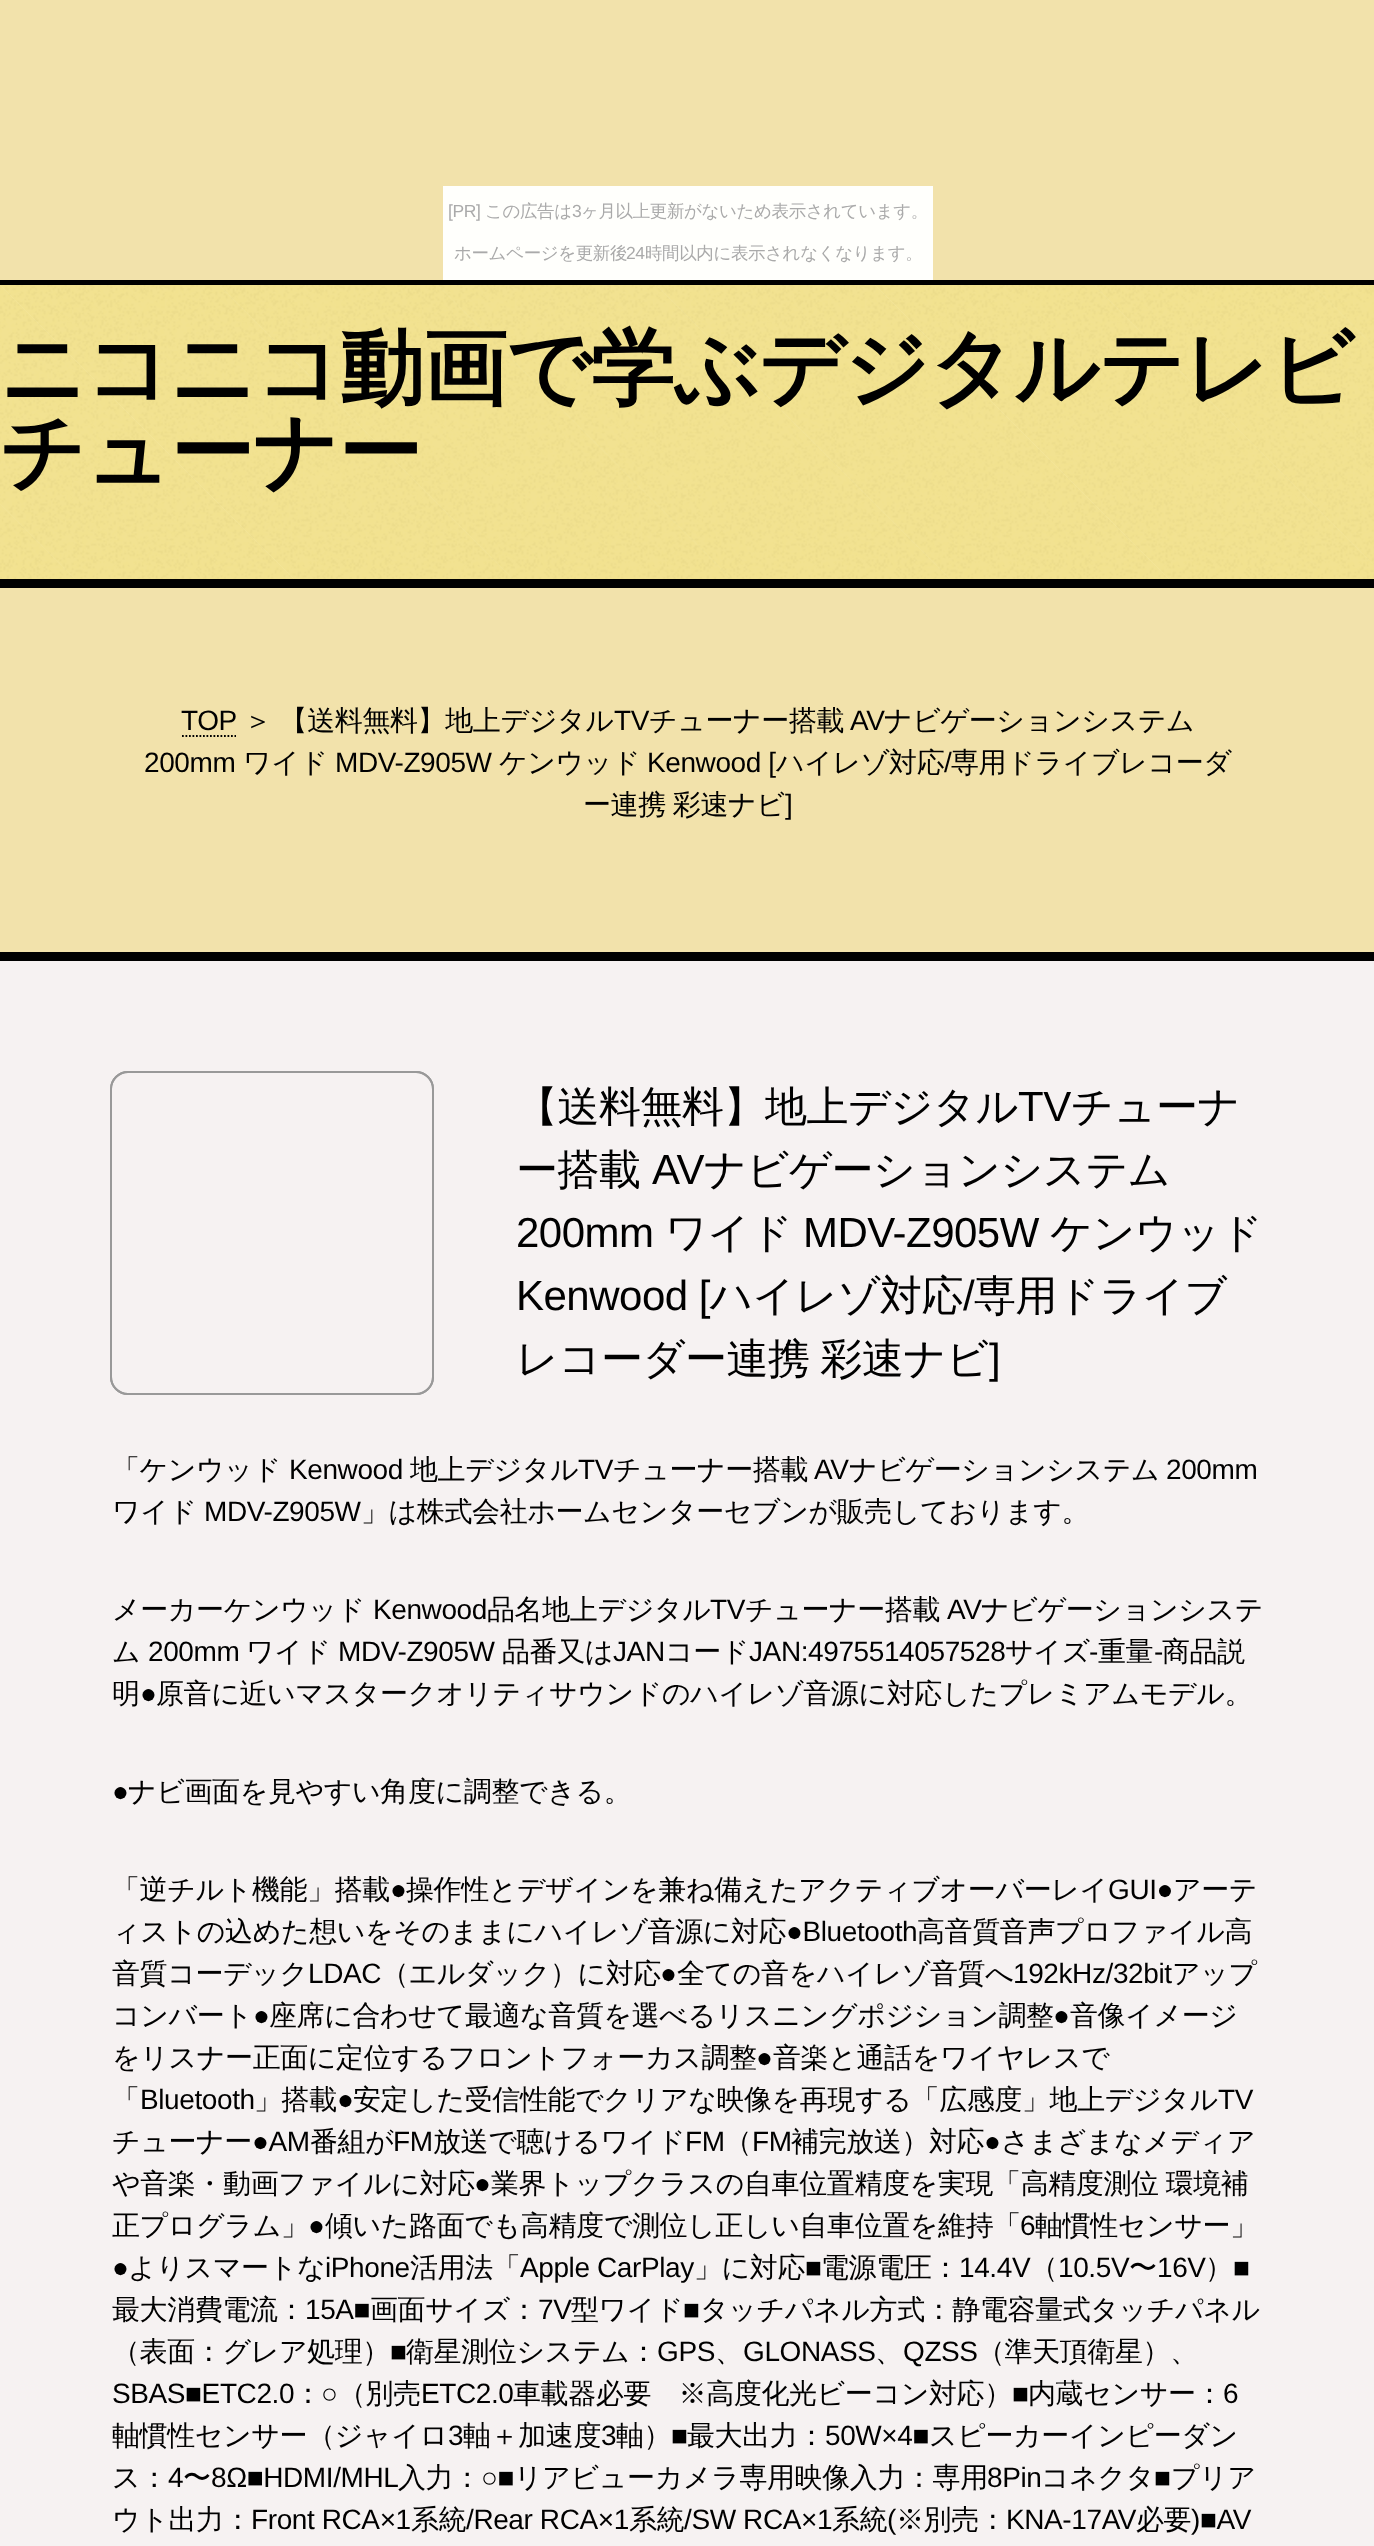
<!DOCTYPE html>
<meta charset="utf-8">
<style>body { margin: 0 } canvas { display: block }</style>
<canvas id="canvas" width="1374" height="2546"></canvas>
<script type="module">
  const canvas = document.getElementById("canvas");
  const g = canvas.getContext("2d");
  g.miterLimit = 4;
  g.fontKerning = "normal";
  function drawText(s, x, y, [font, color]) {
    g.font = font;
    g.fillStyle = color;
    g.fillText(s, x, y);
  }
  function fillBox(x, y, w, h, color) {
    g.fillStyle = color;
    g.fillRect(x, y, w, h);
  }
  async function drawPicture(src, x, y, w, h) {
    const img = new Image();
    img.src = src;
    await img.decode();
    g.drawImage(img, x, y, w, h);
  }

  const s1 = ["17.5px Liberation Sans", "#AAAAAA"];
  const s2 = ["500 17.5px WenQuanYi Zen Hei", "#AAAAAA"];
  const s3 = ["bold 84px WenQuanYi Zen Hei", "#000000"];
  const s4 = ["28px Liberation Sans", "#000000"];
  const s5 = ["500 28px WenQuanYi Zen Hei", "#000000"];
  const s6 = ["500 42px WenQuanYi Zen Hei", "#000000"];
  const s7 = ["42px Liberation Sans", "#000000"];

  fillBox(0, 0, 1374, 2546, "#F2E2AB");
  fillBox(443, 186, 490, 94, "#FFFFFC");
  g.letterSpacing = "-0.4px";
  drawText("[PR]", 448, 217, s1);
  drawText("この広告は", 485, 217, s2);
  drawText("3", 572, 217, s1);
  drawText("ヶ月以上更新がないため表示されています。", 581, 217, s2);
  drawText("ホームページを更新後", 454, 259, s2);
  drawText("24", 626, 259, s1);
  drawText("時間以内に表示されなくなります。", 645, 259, s2);
  fillBox(0, 285, 1374, 294, "#F2E28F");
  await drawPicture("pic1.png", 0, 285, 1374, 294);
  fillBox(0, 280, 1374, 5, "#000000");
  fillBox(0, 579, 1374, 9, "#000000");
  g.letterSpacing = "-1px";
  drawText("ニコニコ動画で学ぶデジタルテレビ", 0, 397, s3);
  drawText("チューナー", 0, 481, s3);
  fillBox(0, 952, 1374, 9, "#000000");
  g.letterSpacing = "-0.4px";
  drawText("TOP", 181, 730, s4);
  g.beginPath();
  g.moveTo(182, 736);
  g.lineTo(236, 736);
  g.strokeStyle = "#000000";
  g.lineWidth = 1.8;
  g.setLineDash([1.75, 1.75]);
  g.stroke();
  drawText("＞ 【送料無料】地上デジタル", 244, 730, s5);
  drawText("TV", 614, 730, s4);
  drawText("チューナー搭載", 649, 730, s5);
  drawText("AV", 850, 730, s4);
  drawText("ナビゲーションシステム", 884, 730, s5);
  drawText("200mm", 144, 772, s4);
  drawText("ワイド", 243, 772, s5);
  drawText("MDV-Z905W", 335, 772, s4);
  drawText("ケンウッド", 499, 772, s5);
  drawText("Kenwood [", 647, 772, s4);
  drawText("ハイレゾ対応", 776, 772, s5);
  drawText("/", 944, 772, s4);
  drawText("専用ドライブレコーダ", 951, 772, s5);
  g.wordSpacing = "-1px";
  drawText("ー連携 彩速ナビ", 583, 814, s5);
  g.wordSpacing = "0px";
  drawText("]", 785, 814, s4);
  fillBox(0, 961, 1374, 1585, "#F6F2F2");
  g.beginPath();
  g.roundRect(111, 1072, 322, 322, 17);
  g.strokeStyle = "#999999";
  g.lineWidth = 2;
  g.setLineDash([]);
  g.stroke();
  g.beginPath();
  g.roundRect(111, 1072, 322, 322, 17);
  g.stroke();
  g.letterSpacing = "-0.5px";
  drawText("【送料無料】地上デジタル", 516, 1121, s6);
  drawText("TV", 1018, 1121, s7);
  drawText("チューナ", 1071, 1121, s6);
  drawText("ー搭載", 516, 1184, s6);
  drawText("AV", 652, 1184, s7);
  drawText("ナビゲーションシステム", 704, 1184, s6);
  drawText("200mm", 516, 1247, s7);
  drawText("ワイド", 665, 1247, s6);
  drawText("MDV-Z905W", 803, 1247, s7);
  drawText("ケンウッド", 1050, 1247, s6);
  drawText("Kenwood [", 516, 1310, s7);
  drawText("ハイレゾ対応", 710, 1310, s6);
  drawText("/", 963, 1310, s7);
  drawText("専用ドライブ", 974, 1310, s6);
  g.wordSpacing = "-1px";
  drawText("レコーダー連携 彩速ナビ", 516, 1373, s6);
  g.wordSpacing = "0px";
  drawText("]", 989, 1373, s7);
  g.letterSpacing = "-0.4px";
  drawText("「ケンウッド", 112, 1479, s5);
  drawText("Kenwood", 289, 1479, s4);
  drawText("地上デジタル", 410, 1479, s5);
  drawText("TV", 578, 1479, s4);
  drawText("チューナー搭載", 613, 1479, s5);
  drawText("AV", 814, 1479, s4);
  drawText("ナビゲーションシステム", 849, 1479, s5);
  drawText("200mm", 1166, 1479, s4);
  drawText("ワイド", 112, 1521, s5);
  drawText("MDV-Z905W", 204, 1521, s4);
  drawText("」は株式会社ホームセンターセブンが販売しております。", 361, 1521, s5);
  drawText("メーカーケンウッド", 112, 1619, s5);
  drawText("Kenwood", 373, 1619, s4);
  drawText("品名地上デジタル", 487, 1619, s5);
  drawText("TV", 710, 1619, s4);
  drawText("チューナー搭載", 745, 1619, s5);
  drawText("AV", 947, 1619, s4);
  drawText("ナビゲーションシステ", 981, 1619, s5);
  drawText("ム", 112, 1661, s5);
  drawText("200mm", 148, 1661, s4);
  drawText("ワイド", 246, 1661, s5);
  drawText("MDV-Z905W", 338, 1661, s4);
  drawText("品番又は", 502, 1661, s5);
  drawText("JAN", 613, 1661, s4);
  drawText("コード", 665, 1661, s5);
  drawText("JAN:4975514057528", 749, 1661, s4);
  drawText("サイズ", 1005, 1661, s5);
  drawText("-", 1089, 1661, s4);
  drawText("重量", 1098, 1661, s5);
  drawText("-", 1154, 1661, s4);
  drawText("商品説", 1162, 1661, s5);
  drawText("明", 112, 1703, s5);
  drawText("●", 140, 1703, s4);
  drawText("原音に近いマスタークオリティサウンドのハイレゾ音源に対応したプレミアムモデル。", 156, 1703, s5);
  drawText("●", 112, 1801, s4);
  drawText("ナビ画面を見やすい角度に調整できる。", 128, 1801, s5);
  drawText("「逆チルト機能」搭載", 112, 1899, s5);
  drawText("●", 390, 1899, s4);
  drawText("操作性とデザインを兼ね備えたアクティブオーバーレイ", 406, 1899, s5);
  drawText("GUI●", 1108, 1899, s4);
  drawText("アーテ", 1173, 1899, s5);
  drawText("ィストの込めた想いをそのままにハイレゾ音源に対応", 112, 1941, s5);
  drawText("●Bluetooth", 786, 1941, s4);
  drawText("高音質音声プロファイル高", 917, 1941, s5);
  drawText("音質コーデック", 112, 1983, s5);
  drawText("LDAC", 308, 1983, s4);
  drawText("（エルダック）に対応", 381, 1983, s5);
  drawText("●", 660, 1983, s4);
  drawText("全ての音をハイレゾ音質へ", 677, 1983, s5);
  drawText("192kHz/32bit", 1013, 1983, s4);
  drawText("アップ", 1172, 1983, s5);
  drawText("コンバート", 112, 2025, s5);
  drawText("●", 253, 2025, s4);
  drawText("座席に合わせて最適な音質を選べるリスニングポジション調整", 269, 2025, s5);
  drawText("●", 1053, 2025, s4);
  drawText("音像イメージ", 1070, 2025, s5);
  drawText("をリスナー正面に定位するフロントフォーカス調整", 112, 2067, s5);
  drawText("●", 756, 2067, s4);
  drawText("音楽と通話をワイヤレスで", 773, 2067, s5);
  drawText("「", 112, 2109, s5);
  drawText("Bluetooth", 140, 2109, s4);
  drawText("」搭載", 254, 2109, s5);
  drawText("●", 337, 2109, s4);
  drawText("安定した受信性能でクリアな映像を再現する「広感度」地上デジタル", 353, 2109, s5);
  drawText("TV", 1218, 2109, s4);
  drawText("チューナー", 112, 2151, s5);
  drawText("●AM", 252, 2151, s4);
  drawText("番組が", 310, 2151, s5);
  drawText("FM", 393, 2151, s4);
  drawText("放送で聴けるワイド", 433, 2151, s5);
  drawText("FM", 685, 2151, s4);
  drawText("（", 724, 2151, s5);
  drawText("FM", 752, 2151, s4);
  drawText("補完放送）対応", 791, 2151, s5);
  drawText("●", 984, 2151, s4);
  drawText("さまざまなメディア", 1001, 2151, s5);
  drawText("や音楽・動画ファイルに対応", 112, 2193, s5);
  drawText("●", 474, 2193, s4);
  g.wordSpacing = "-1px";
  drawText("業界トップクラスの自車位置精度を実現「高精度測位 環境補", 491, 2193, s5);
  g.wordSpacing = "0px";
  drawText("正プログラム」", 112, 2235, s5);
  drawText("●", 308, 2235, s4);
  drawText("傾いた路面でも高精度で測位し正しい自車位置を維持「", 325, 2235, s5);
  drawText("6", 1020, 2235, s4);
  drawText("軸慣性センサー」", 1035, 2235, s5);
  drawText("●", 112, 2277, s4);
  drawText("よりスマートな", 128, 2277, s5);
  drawText("iPhone", 325, 2277, s4);
  drawText("活用法「", 410, 2277, s5);
  drawText("Apple CarPlay", 520, 2277, s4);
  drawText("」に対応", 694, 2277, s5);
  drawText("■", 805, 2277, s4);
  drawText("電源電圧：", 821, 2277, s5);
  drawText("14.4V", 959, 2277, s4);
  drawText("（", 1030, 2277, s5);
  drawText("10.5V", 1058, 2277, s4);
  drawText("〜", 1129, 2277, s5);
  drawText("16V", 1157, 2277, s4);
  drawText("）", 1205, 2277, s5);
  drawText("■", 1233, 2277, s4);
  drawText("最大消費電流：", 112, 2319, s5);
  drawText("15A■", 305, 2319, s4);
  drawText("画面サイズ：", 370, 2319, s5);
  drawText("7V", 538, 2319, s4);
  drawText("型ワイド", 571, 2319, s5);
  drawText("■", 683, 2319, s4);
  drawText("タッチパネル方式：静電容量式タッチパネル", 700, 2319, s5);
  drawText("（表面：グレア処理）", 112, 2361, s5);
  drawText("■", 390, 2361, s4);
  drawText("衛星測位システム：", 406, 2361, s5);
  drawText("GPS", 657, 2361, s4);
  drawText("GLONASS", 743, 2361, s4);
  drawText("QZSS", 903, 2361, s4);
  drawText("（準天頂衛星）、", 977, 2361, s5);
  drawText("、", 715, 2361, s5);
  drawText("、", 875, 2361, s5);
  drawText("SBAS■ETC2.0", 112, 2403, s4);
  drawText("：", 294, 2403, s5);
  drawText("○", 321, 2403, s4);
  drawText("（別売", 338, 2403, s5);
  drawText("ETC2.0", 421, 2403, s4);
  drawText("車載器必要　※高度化光ビーコン対応）", 513, 2403, s5);
  drawText("■", 1012, 2403, s4);
  drawText("内蔵センサー：", 1028, 2403, s5);
  drawText("6", 1223, 2403, s4);
  drawText("軸慣性センサー（ジャイロ", 112, 2445, s5);
  drawText("3", 448, 2445, s4);
  drawText("軸＋加速度", 463, 2445, s5);
  drawText("3", 601, 2445, s4);
  drawText("軸）", 616, 2445, s5);
  drawText("■", 671, 2445, s4);
  drawText("最大出力：", 687, 2445, s5);
  drawText("50W×4■", 825, 2445, s4);
  drawText("スピーカーインピーダン", 929, 2445, s5);
  drawText("ス：", 112, 2487, s5);
  drawText("4", 168, 2487, s4);
  drawText("〜", 183, 2487, s5);
  drawText("8Ω■HDMI/MHL", 211, 2487, s4);
  drawText("入力：", 398, 2487, s5);
  drawText("○■", 481, 2487, s4);
  drawText("リアビューカメラ専用映像入力：専用", 514, 2487, s5);
  drawText("8Pin", 987, 2487, s4);
  drawText("コネクタ", 1041, 2487, s5);
  drawText("■", 1154, 2487, s4);
  drawText("プリア", 1171, 2487, s5);
  drawText("ウト出力：", 112, 2529, s5);
  drawText("Front RCA×1", 251, 2529, s4);
  drawText("系統", 411, 2529, s5);
  drawText("/Rear RCA×1", 466, 2529, s4);
  drawText("系統", 629, 2529, s5);
  drawText("/SW RCA×1", 684, 2529, s4);
  drawText("系統", 832, 2529, s5);
  drawText("(", 887, 2529, s4);
  drawText("※別売：", 896, 2529, s5);
  drawText("KNA-17AV", 1006, 2529, s4);
  drawText("必要", 1136, 2529, s5);
  drawText(")■AV", 1191, 2529, s4);
</script>
